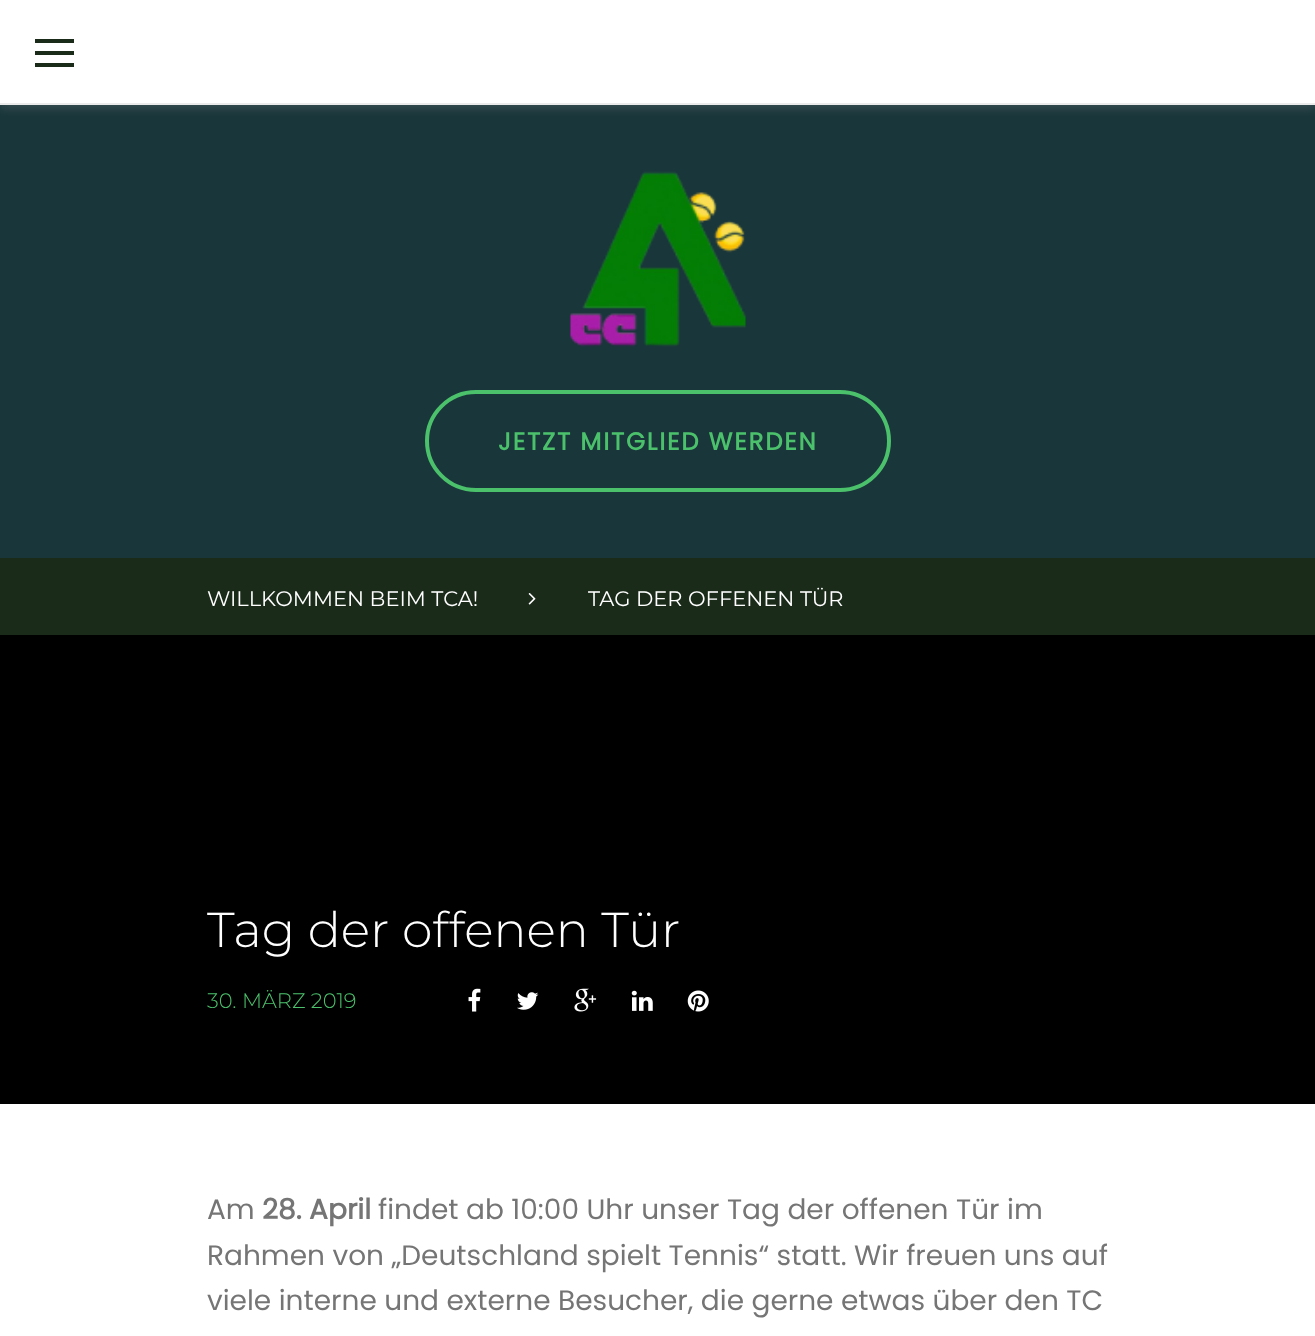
<!DOCTYPE html>
<meta charset="utf-8">
<style>body { margin: 0 } canvas { display: block }</style>
<canvas id="canvas" width="1315" height="1336"></canvas>
<script type="module">
  const canvas = document.getElementById("canvas");
  const g = canvas.getContext("2d");
  g.miterLimit = 4;
  g.fontKerning = "normal";
  function drawText(s, x, y, [font, color]) {
    g.font = font;
    g.fillStyle = color;
    g.fillText(s, x, y);
  }
  function fillBox(x, y, w, h, color) {
    g.fillStyle = color;
    g.fillRect(x, y, w, h);
  }
  async function drawPicture(src, x, y, w, h) {
    const img = new Image();
    img.src = src;
    await img.decode();
    g.drawImage(img, x, y, w, h);
  }

  const s1 = ["bold 24.5px Poppins", "#4BC16B"];
  const s2 = ["21px Montserrat", "#FFFFFF"];
  const s3 = ["300 49px Montserrat", "#FFFFFF"];
  const s4 = ["300 21px Montserrat", "#4BC16B"];
  const s5 = ["28px Poppins", "#757575"];
  const s6 = ["bold 28px Poppins", "#757575"];

  fillBox(0, 0, 1315, 1336, "#FFFFFF");
  fillBox(0, 105, 1315, 453, "#19363B");
  g.save();
  g.beginPath();
  g.rect(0, 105, 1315, 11);
  g.clip();
  g.fillStyle = "rgba(136, 136, 136, 0.26)";
  g.filter = "blur(5px)";
  g.beginPath();
  g.rect(0, 4, 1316, 105);
  g.fill();
  g.filter = "none";
  g.restore();
  fillBox(0, 103, 1315, 2, "#EBEBEB");
  fillBox(35, 51, 39, 4, "#1A2B1A");
  fillBox(35, 39, 39, 4, "#1A2B1A");
  fillBox(35, 63, 39, 4, "#1A2B1A");
  await drawPicture("pic1.png", 570, 171, 176, 176);
  g.beginPath();
  g.roundRect(427, 392, 462, 98, 49);
  g.strokeStyle = "#4BC16B";
  g.lineWidth = 4;
  g.stroke();
  g.letterSpacing = "1.75px";
  drawText("JETZT MITGLIED WERDEN", 498, 450, s1);
  fillBox(0, 558, 1315, 77, "#1A2B1A");
  g.letterSpacing = "0px";
  drawText("WILLKOMMEN BEIM TCA!", 207, 606, s2);
  await drawPicture("pic2.png", 528, 593, 8, 12);
  drawText("TAG DER OFFENEN TÜR", 588, 606, s2);
  fillBox(0, 635, 1315, 469, "#000000");
  drawText("Tag der offenen Tür", 207, 947, s3);
  drawText("30. MÄRZ 2019", 207, 1008, s4);
  await drawPicture("pic3.png", 468, 988, 13, 24);
  await drawPicture("pic4.png", 517, 992, 22, 18);
  await drawPicture("pic5.png", 574, 988, 23, 24);
  await drawPicture("pic6.png", 631, 990, 22, 21);
  await drawPicture("pic7.png", 687, 990, 22, 22);
  drawText("Am", 207, 1219, s5);
  drawText("28. April", 262, 1219, s6);
  drawText("findet ab 10:00 Uhr unser Tag der offenen Tür im", 378, 1219, s5);
  drawText("Rahmen von „Deutschland spielt Tennis“ statt. Wir freuen uns auf", 207, 1265, s5);
  drawText("viele interne und externe Besucher, die gerne etwas über den TC", 207, 1310, s5);
</script>
